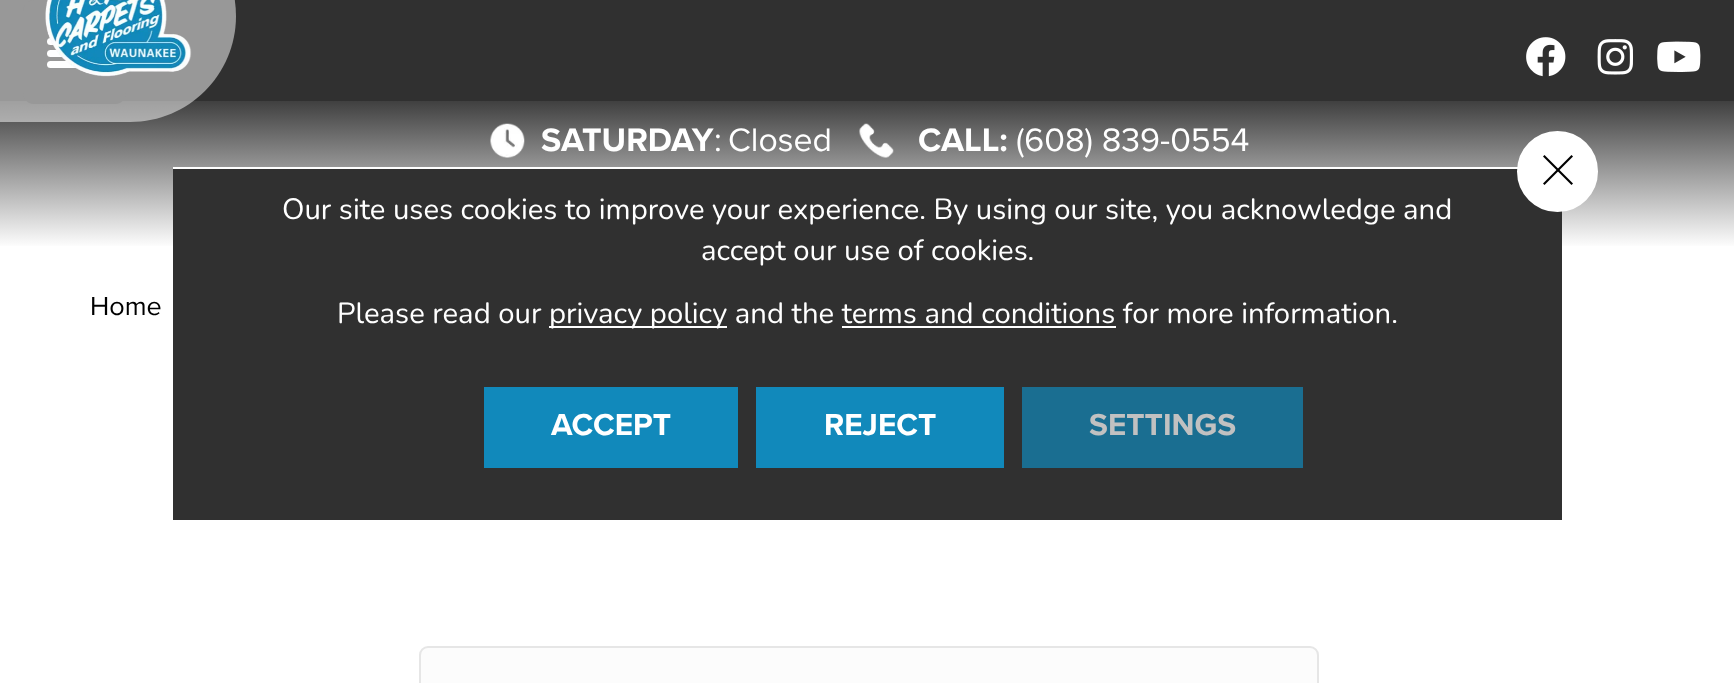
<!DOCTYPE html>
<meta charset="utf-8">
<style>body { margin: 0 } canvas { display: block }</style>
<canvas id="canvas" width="1734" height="683"></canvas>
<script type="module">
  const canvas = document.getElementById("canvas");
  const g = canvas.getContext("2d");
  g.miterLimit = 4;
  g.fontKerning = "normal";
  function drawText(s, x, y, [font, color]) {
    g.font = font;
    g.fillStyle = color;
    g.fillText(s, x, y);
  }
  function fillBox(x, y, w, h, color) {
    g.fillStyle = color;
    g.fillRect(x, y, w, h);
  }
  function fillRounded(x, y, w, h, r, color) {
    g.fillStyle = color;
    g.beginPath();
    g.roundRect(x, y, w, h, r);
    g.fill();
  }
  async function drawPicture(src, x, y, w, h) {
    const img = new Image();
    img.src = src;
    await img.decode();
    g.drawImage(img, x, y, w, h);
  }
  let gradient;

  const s1 = ["bold 33.75px Proxima Nova", "#FFFFFF"];
  const s2 = ["33.75px Proxima Nova", "#FFFFFF"];
  const s3 = ["27px Proxima Nova", "#000000"];
  const s4 = ["29.25px Nunito", "#FFFFFF"];
  const s5 = ["bold 31.5px Proxima Nova", "#FFFFFF"];
  const s6 = ["bold 31.5px Proxima Nova", "#C1C1C1"];

  fillBox(0, 0, 1734, 683, "#FFFFFF");
  fillBox(0, 0, 1734, 101, "#303030");
  gradient = g.createLinearGradient(867, 101, 867, 248);
  gradient.addColorStop(0, "#404040");
  gradient.addColorStop(1, "#FFFFFF");
  g.fillStyle = gradient;
  g.fillRect(0, 101, 1734, 145);
  fillRounded(23, 0, 103, 104, 11, "#303030");
  fillRounded(47, 50, 57, 7, 3.5, "#FFFFFF");
  fillRounded(47, 38, 57, 7, 3.5, "#FFFFFF");
  fillRounded(47, 61, 57, 7, 3.5, "#FFFFFF");
  g.fillStyle = "rgba(255, 255, 255, 0.5)";
  g.beginPath();
  g.moveTo(0, -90);
  g.lineTo(130, -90);
  g.bezierCurveTo(188.5, -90, 236, -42.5, 236, 16);
  g.bezierCurveTo(236, 74.5, 188.5, 122, 130, 122);
  g.lineTo(0, 122);
  g.closePath();
  g.fill();
  await drawPicture("pic1.png", 45, 0, 147, 77);
  await drawPicture("pic2.png", 1526, 37, 40, 40);
  await drawPicture("pic3.png", 1597, 39, 36, 36);
  await drawPicture("pic4.png", 1657, 41, 44, 31);
  await drawPicture("pic5.png", 490, 123, 35, 35);
  drawText("SATURDAY", 541, 151, s1);
  drawText(":", 714, 151, s2);
  drawText("Closed", 728, 151, s2);
  await drawPicture("pic6.png", 859, 123, 35, 35);
  drawText("CALL:", 918, 151, s1);
  drawText("(608) 839-0554", 1016, 151, s2);
  drawText("Home", 90, 315, s3);
  g.fillStyle = "#FCFCFC";
  g.beginPath();
  g.roundRect(420, 647, 898, 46, 8);
  g.fill();
  g.strokeStyle = "#E6E6E6";
  g.lineWidth = 2;
  g.stroke();
  fillBox(173, 169, 1389, 351, "#303030");
  fillBox(173, 167, 1345, 2, "#FFFFFF");
  drawText("Our site uses cookies to improve your experience. By using our site, you acknowledge and", 282, 219, s4);
  drawText("accept our use of cookies.", 701, 260, s4);
  drawText("Please read our", 337, 323, s4);
  fillBox(549, 326, 178, 2, "#FFFFFF");
  drawText("privacy policy and the terms and conditions for more information.", 549, 323, s4);
  fillBox(842, 326, 274, 2, "#FFFFFF");
  g.beginPath();
  g.arc(1557.5, 171.5, 39.5, 0, Math.PI * 2);
  g.fill();
  g.strokeStyle = "#FFFFFF";
  g.stroke();
  g.fillStyle = "#000000";
  g.beginPath();
  g.moveTo(1571.5, 155);
  g.lineTo(1573, 156.5);
  g.lineTo(1544.5, 185);
  g.lineTo(1543, 183.5);
  g.closePath();
  g.fill();
  g.beginPath();
  g.moveTo(1543, 156.5);
  g.lineTo(1544.5, 155);
  g.lineTo(1573, 183.5);
  g.lineTo(1571.5, 185);
  g.closePath();
  g.fill();
  fillBox(484, 387, 254, 81, "#1189BB");
  drawText("ACCEPT", 551, 435, s5);
  fillBox(756, 387, 248, 81, "#1189BB");
  drawText("REJECT", 824, 435, s5);
  fillBox(1022, 387, 281, 81, "#1A6E91");
  drawText("SETTINGS", 1089, 435, s6);
</script>
